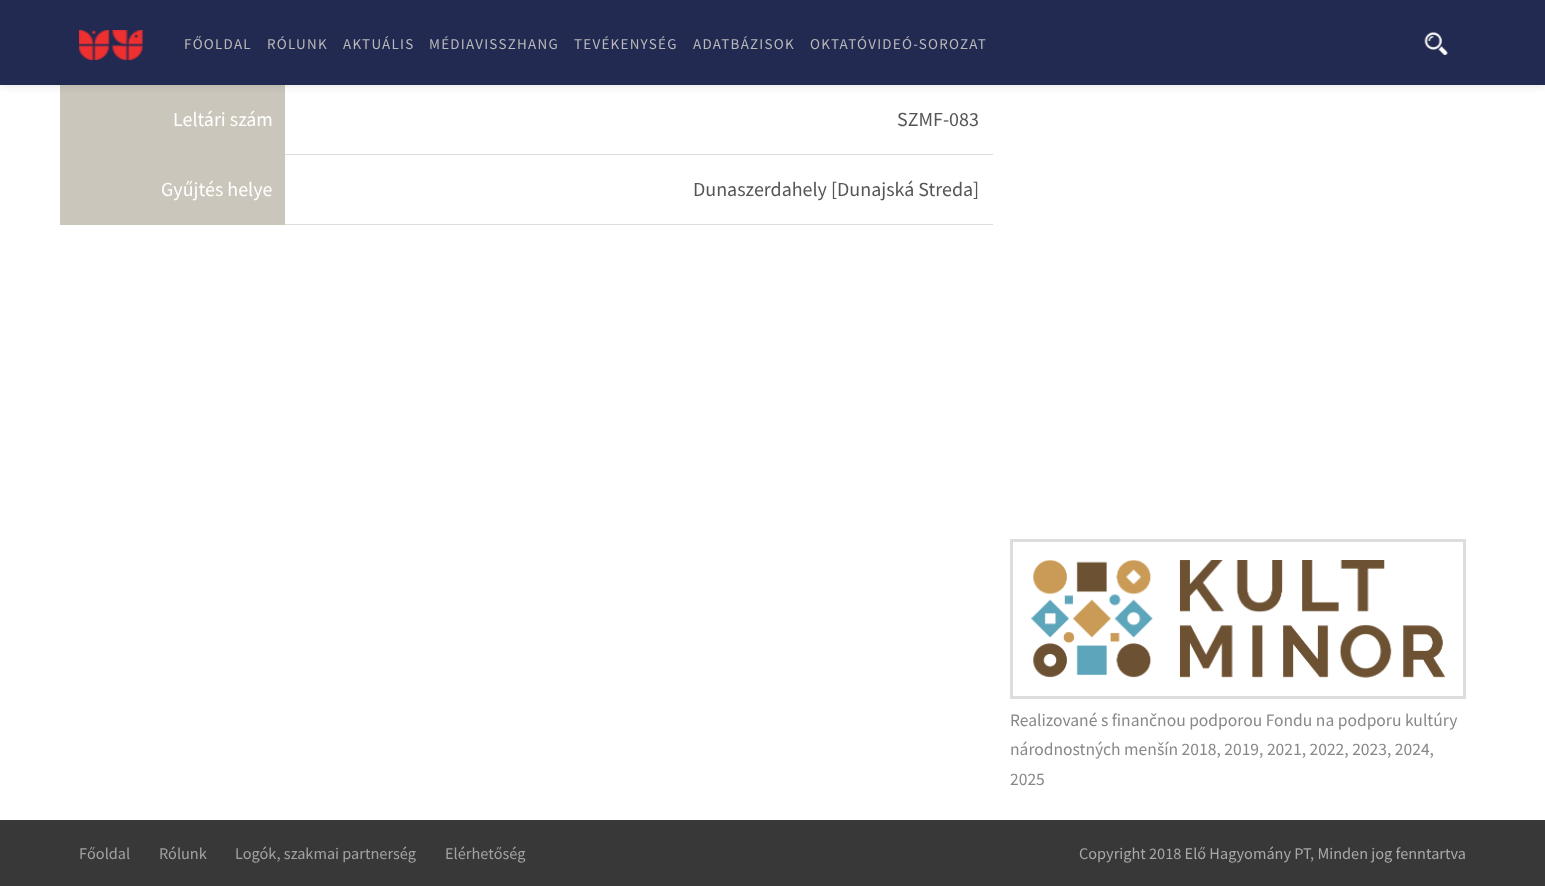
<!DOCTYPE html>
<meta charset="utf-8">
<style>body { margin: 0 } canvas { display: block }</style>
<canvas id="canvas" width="1545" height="886"></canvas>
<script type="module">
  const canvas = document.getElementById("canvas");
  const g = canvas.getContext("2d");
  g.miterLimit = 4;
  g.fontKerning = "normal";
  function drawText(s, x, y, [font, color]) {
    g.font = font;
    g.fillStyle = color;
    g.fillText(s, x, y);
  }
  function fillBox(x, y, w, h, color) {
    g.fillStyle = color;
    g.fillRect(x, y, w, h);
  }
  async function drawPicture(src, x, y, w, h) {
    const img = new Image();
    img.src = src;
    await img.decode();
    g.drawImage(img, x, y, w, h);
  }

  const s1 = ["15px Source Sans Pro", "#B9B9B9"];
  const s2 = ["20px Source Sans Pro", "#FFFFFF"];
  const s3 = ["20px Source Sans Pro", "#555555"];
  const s4 = ["17.5px Source Sans Pro", "#888888"];
  const s5 = ["16.25px Source Sans Pro", "#A2A2A2"];
  const s6 = ["16.25px Source Sans Pro", "#A8A8A8"];

  fillBox(0, 0, 1545, 886, "#FFFFFF");
  fillBox(60, 85, 225, 140, "#CBC6BB");
  g.fillStyle = "rgba(0, 0, 0, 0.1)";
  g.filter = "blur(4px)";
  g.beginPath();
  g.rect(0, 1, 1545, 85);
  g.fill();
  g.filter = "none";
  fillBox(0, 0, 1545, 85, "#232A52");
  await drawPicture("pic1.png", 79, 30, 64, 30);
  g.letterSpacing = "1.25px";
  drawText("FŐOLDAL", 184, 49, s1);
  drawText("RÓLUNK", 267, 49, s1);
  drawText("AKTUÁLIS", 343, 49, s1);
  drawText("MÉDIAVISSZHANG", 429, 49, s1);
  drawText("TEVÉKENYSÉG", 574, 49, s1);
  drawText("ADATBÁZISOK", 693, 49, s1);
  drawText("OKTATÓVIDEÓ-SOROZAT", 810, 49, s1);
  await drawPicture("pic2.png", 1424, 32, 24, 23);
  g.letterSpacing = "0px";
  drawText("Leltári szám", 173, 126, s2);
  fillBox(285, 154, 708, 1, "#DDDDDD");
  drawText("SZMF-083", 897, 126, s3);
  drawText("Gyűjtés helye", 161, 196, s2);
  fillBox(285, 224, 708, 1, "#DDDDDD");
  drawText("Dunaszerdahely [Dunajská Streda]", 693, 196, s3);
  g.strokeStyle = "#DDDDDD";
  g.lineWidth = 3;
  g.strokeRect(1011.5, 540.5, 453, 157);
  await drawPicture("pic3.png", 1031, 560, 414, 118);
  drawText("Realizované s finančnou podporou Fondu na podporu kultúry", 1010, 726, s4);
  drawText("národnostných menšín 2018, 2019, 2021, 2022, 2023, 2024,", 1010, 755, s4);
  drawText("2025", 1010, 785, s4);
  fillBox(0, 820, 1545, 66, "#383838");
  drawText("Főoldal", 79, 859, s5);
  drawText("Rólunk", 159, 859, s5);
  drawText("Logók, szakmai partnerség", 235, 859, s5);
  drawText("Elérhetőség", 445, 859, s5);
  drawText("Copyright 2018 Elő Hagyomány PT, Minden jog fenntartva", 1079, 859, s6);
</script>
